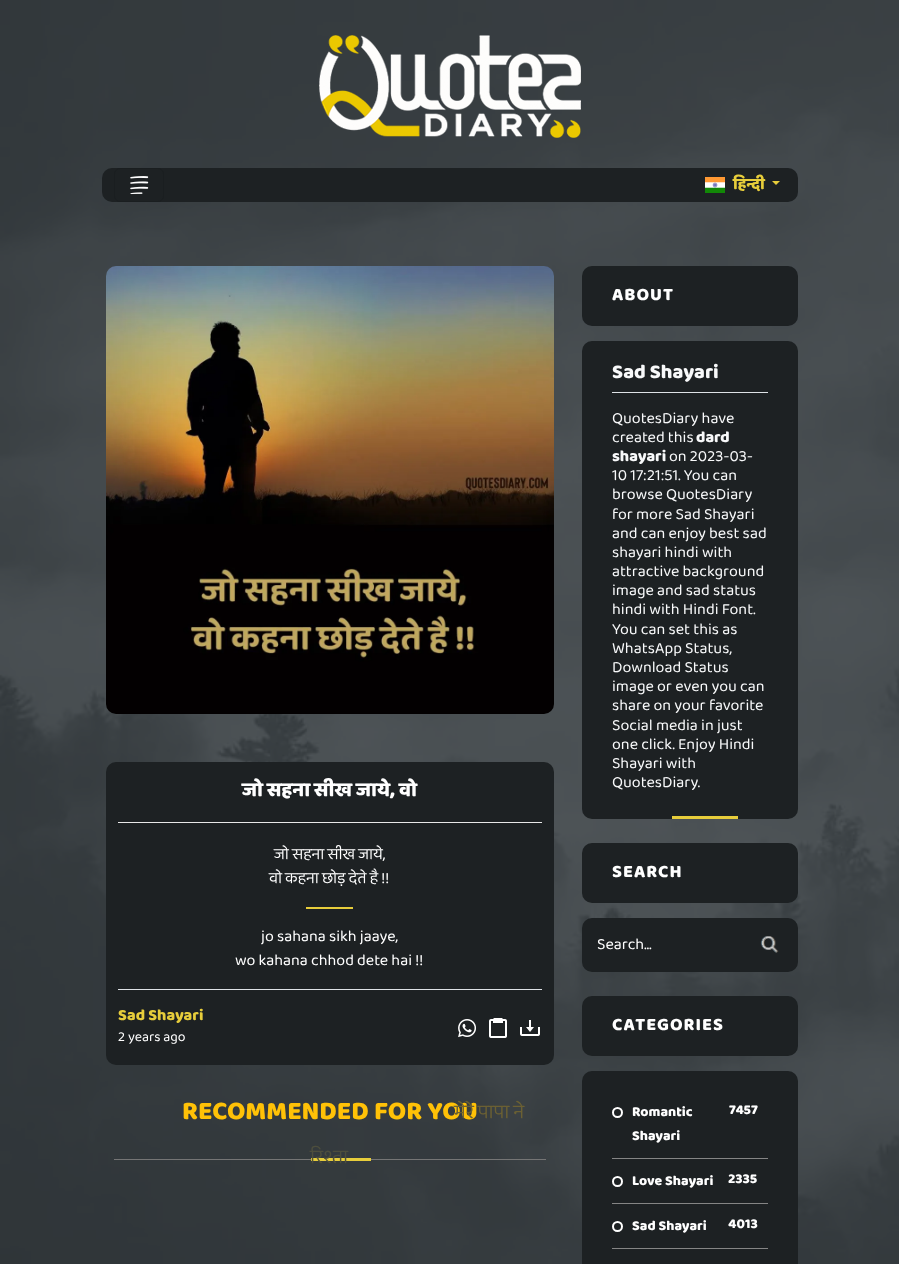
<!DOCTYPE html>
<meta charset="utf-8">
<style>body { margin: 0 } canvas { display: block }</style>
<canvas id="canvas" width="899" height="1264"></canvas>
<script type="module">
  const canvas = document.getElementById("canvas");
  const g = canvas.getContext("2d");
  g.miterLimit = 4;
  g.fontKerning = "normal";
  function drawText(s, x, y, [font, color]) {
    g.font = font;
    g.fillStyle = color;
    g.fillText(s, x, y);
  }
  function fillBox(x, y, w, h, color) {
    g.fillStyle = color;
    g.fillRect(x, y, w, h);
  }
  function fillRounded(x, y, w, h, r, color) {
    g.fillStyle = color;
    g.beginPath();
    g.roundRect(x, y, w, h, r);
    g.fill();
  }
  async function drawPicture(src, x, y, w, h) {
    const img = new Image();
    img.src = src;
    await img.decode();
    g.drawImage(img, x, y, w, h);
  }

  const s1 = ["800 16px 'Baloo 2'", "#E7CD3B"];
  const s2 = ["800 20px 'Baloo 2'", "#FFFFFF"];
  const s3 = ["16px 'Baloo 2'", "#FFFFFF"];
  const s4 = ["14px 'Baloo 2'", "#FFFFFF"];
  const s5 = ["800 26.25px 'Baloo 2'", "#FFC107"];
  const s6 = ["20px 'Baloo 2'", "#6B6033"];
  const s7 = ["20px 'Baloo 2'", "#4D4E3D"];
  const s8 = ["800 18px 'Baloo 2'", "#FFFFFF"];
  const s9 = ["800 20px 'Baloo 2'", "#F8F9FA"];
  const s10 = ["16px 'Baloo 2'", "#F8F9FA"];
  const s11 = ["800 16px 'Baloo 2'", "#F8F9FA"];
  const s12 = ["800 14px 'Baloo 2'", "#FFFFFF"];

  fillBox(0, 0, 899, 1264, "#FFFFFF");
  await drawPicture("pic1.png", 0, 0, 899, 1264);
  await drawPicture("pic2.png", 319, 35, 262, 103);
  fillRounded(102, 168, 696, 34, 10, "#1D2123");
  g.beginPath();
  g.roundRect(114.5, 168.5, 49, 33, 5.5);
  g.strokeStyle = "#1A1E20";
  g.stroke();
  await drawPicture("pic3.png", 130, 176, 19, 19);
  await drawPicture("pic4.png", 705, 177, 20, 16);
  drawText("हिन्दी", 733, 189, s1);
  g.beginPath();
  g.moveTo(772, 181);
  g.lineTo(780, 181);
  g.lineTo(776, 185);
  g.closePath();
  g.fill();
  await drawPicture("pic5.png", 106, 266, 448, 448);
  fillRounded(106, 762, 448, 303, 10, "#1D2123");
  fillBox(118, 822, 424, 1, "#E8E8E8");
  drawText("जो सहना सीख जाये, वो", 242, 796, s2);
  drawText("जो सहना सीख जाये,", 274, 859, s3);
  drawText("वो कहना छोड़ देते है !!", 269, 883, s3);
  fillBox(306, 907, 47, 2, "#E7CD3B");
  drawText("jo sahana sikh jaaye,", 261, 941, s3);
  drawText("wo kahana chhod dete hai !!", 235, 965, s3);
  fillBox(118, 989, 424, 1, "#DEE2E6");
  drawText("Sad Shayari", 118, 1020, s1);
  drawText("2 years ago", 118, 1041, s4);
  await drawPicture("pic6.png", 458, 1019, 18, 19);
  await drawPicture("pic7.png", 489, 1018, 18, 20);
  await drawPicture("pic8.png", 520, 1020, 20, 16);
  drawText("RECOMMENDED FOR YOU", 182, 1119, s5);
  drawText("मेरे पापा ने", 454, 1118, s6);
  fillBox(114, 1159, 432, 1, "#757575");
  fillBox(311, 1158, 60, 3, "#E7CD3B");
  drawText("रिश्ता", 310, 1163, s7);
  fillRounded(582, 266, 216, 60, 10, "#1D2123");
  g.letterSpacing = "1px";
  drawText("ABOUT", 612, 300, s8);
  fillRounded(582, 341, 216, 478, 10, "#1D2123");
  fillBox(612, 392, 156, 1, "#DEE2E6");
  g.letterSpacing = "0px";
  drawText("Sad Shayari", 612, 378, s9);
  drawText("QuotesDiary have", 612, 423, s10);
  drawText("created this", 612, 442, s10);
  drawText("dard", 696, 442, s11);
  drawText("shayari", 612, 461, s11);
  drawText("on 2023-03-", 669, 461, s10);
  drawText("10 17:21:51. You can", 612, 480, s10);
  drawText("browse QuotesDiary", 612, 499, s10);
  drawText("for more Sad Shayari", 612, 519, s10);
  drawText("and can enjoy best sad", 612, 538, s10);
  drawText("shayari hindi with", 612, 557, s10);
  drawText("attractive background", 612, 576, s10);
  drawText("image and sad status", 612, 595, s10);
  drawText("hindi with Hindi Font.", 612, 614, s10);
  drawText("You can set this as", 612, 634, s10);
  drawText("WhatsApp Status,", 612, 653, s10);
  drawText("Download Status", 612, 672, s10);
  drawText("image or even you can", 612, 691, s10);
  drawText("share on your favorite", 612, 710, s10);
  drawText("Social media in just", 612, 730, s10);
  drawText("one click. Enjoy Hindi", 612, 749, s10);
  drawText("Shayari with", 612, 768, s10);
  drawText("QuotesDiary.", 612, 787, s10);
  fillBox(672, 816, 66, 3, "#E7CD3B");
  fillRounded(582, 843, 216, 60, 10, "#1D2123");
  g.letterSpacing = "1px";
  drawText("SEARCH", 612, 877, s8);
  fillRounded(582, 918, 216, 54, 10, "#1D2123");
  g.letterSpacing = "0px";
  drawText("Search...", 597, 949, s3);
  await drawPicture("pic9.png", 760, 936, 19, 17);
  fillRounded(582, 996, 216, 60, 10, "#1D2123");
  g.letterSpacing = "1px";
  drawText("CATEGORIES", 612, 1030, s8);
  fillRounded(582, 1071, 216, 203, 10, "#1D2123");
  fillBox(612, 1158, 156, 1, "#858585");
  g.beginPath();
  g.arc(617.5, 1112.5, 4.5, 0, Math.PI * 2);
  g.strokeStyle = "#FFFFFF";
  g.lineWidth = 2;
  g.stroke();
  g.letterSpacing = "0px";
  drawText("Romantic", 632, 1116, s12);
  drawText("7457", 729, 1114, s12);
  drawText("Shayari", 632, 1140, s12);
  fillBox(612, 1203, 156, 1, "#858585");
  g.beginPath();
  g.arc(617.5, 1181.5, 4.5, 0, Math.PI * 2);
  g.stroke();
  drawText("Love Shayari", 632, 1185, s12);
  drawText("2335", 728, 1183, s12);
  fillBox(612, 1248, 156, 1, "#858585");
  g.beginPath();
  g.arc(617.5, 1226.5, 4.5, 0, Math.PI * 2);
  g.stroke();
  drawText("Sad Shayari", 632, 1230, s12);
  drawText("4013", 728, 1228, s12);
</script>
